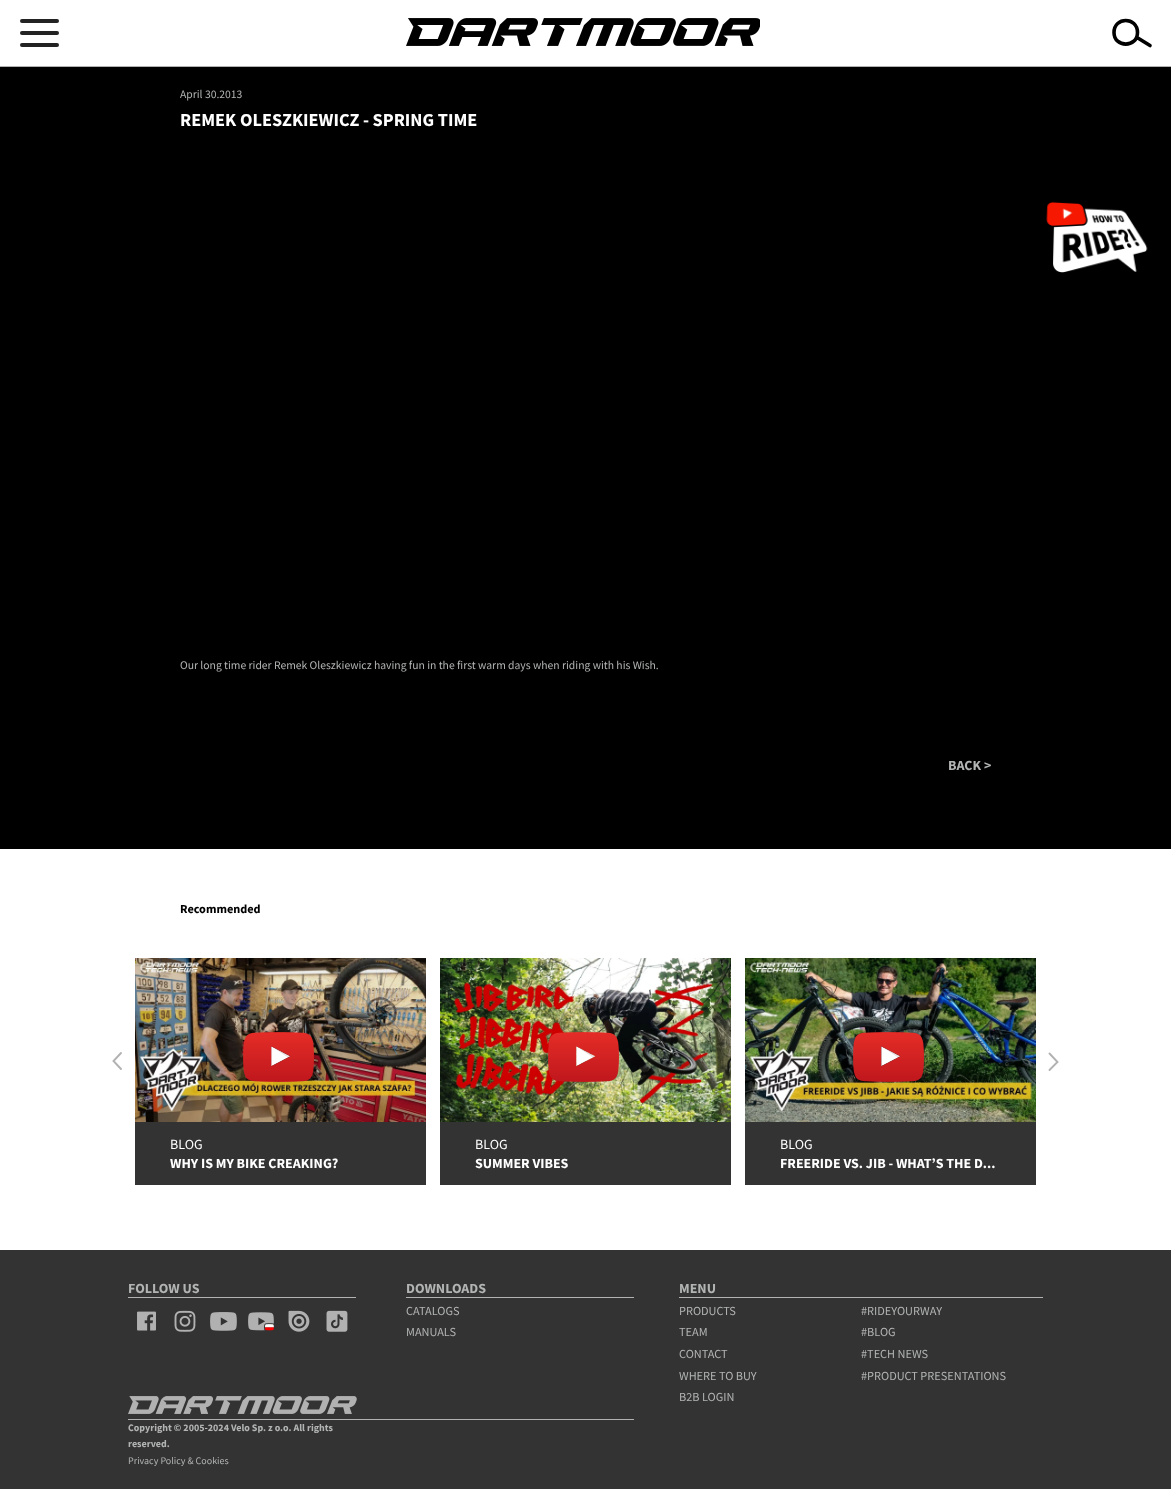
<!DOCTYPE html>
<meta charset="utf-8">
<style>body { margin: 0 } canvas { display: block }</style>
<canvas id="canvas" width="1171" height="1489"></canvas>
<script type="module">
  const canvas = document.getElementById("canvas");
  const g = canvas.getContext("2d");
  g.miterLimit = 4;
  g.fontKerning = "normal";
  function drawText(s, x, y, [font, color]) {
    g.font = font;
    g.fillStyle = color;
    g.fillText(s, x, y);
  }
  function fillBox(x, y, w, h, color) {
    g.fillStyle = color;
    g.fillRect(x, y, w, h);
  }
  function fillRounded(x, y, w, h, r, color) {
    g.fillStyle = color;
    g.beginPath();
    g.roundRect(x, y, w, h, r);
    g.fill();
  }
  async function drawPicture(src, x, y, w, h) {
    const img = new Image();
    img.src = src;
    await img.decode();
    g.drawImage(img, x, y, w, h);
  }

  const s1 = ["11.6px Source Sans Pro", "#B2B3B3"];
  const s2 = ["bold 18.25px Source Sans Pro", "#FFFFFF"];
  const s3 = ["bold 14px Source Sans Pro", "#B2B3B3"];
  const s4 = ["bold 12.25px Source Sans Pro", "#000000"];
  const s5 = ["14px Source Sans Pro", "#FFFFFF"];
  const s6 = ["bold 14px Source Sans Pro", "#FFFFFF"];
  const s7 = ["12.25px Source Sans Pro", "#B2B3B3"];
  const s8 = ["bold 10px Source Sans Pro", "#B2B3B3"];
  const s9 = ["10px Source Sans Pro", "#B2B3B3"];

  fillBox(0, 0, 1171, 1489, "#FFFFFF");
  fillBox(0, 66, 1171, 1, "#B2B2B2");
  fillRounded(20, 19, 39, 4, 2, "#232323");
  fillRounded(20, 31, 39, 4, 2, "#232323");
  fillRounded(20, 43, 39, 4, 2, "#232323");
  await drawPicture("pic1.png", 406, 18, 354, 28);
  g.beginPath();
  g.moveTo(1150, 45.5);
  g.lineTo(1137, 37.5);
  g.moveTo(1137.5, 32.5);
  g.bezierCurveTo(1137.5, 16.5, 1114, 16.5, 1114, 32.5);
  g.bezierCurveTo(1114, 48, 1137.5, 48, 1137.5, 32.5);
  g.closePath();
  g.strokeStyle = "#000000";
  g.lineWidth = 3.6;
  g.lineCap = "round";
  g.stroke();
  fillBox(0, 67, 1171, 782, "#000000");
  drawText("April 30.2013", 180, 98, s1);
  drawText("REMEK OLESZKIEWICZ - SPRING TIME", 180, 126, s2);
  drawText("Our long time rider Remek Oleszkiewicz having fun in the first warm days when riding with his Wish.", 180, 669, s1);
  drawText("BACK >", 948, 770, s3);
  await drawPicture("pic2.png", 1046, 201, 102, 72);
  drawText("Recommended", 180, 913, s4);
  g.beginPath();
  g.moveTo(121, 1069);
  g.lineTo(113.5, 1061);
  g.lineTo(121, 1053);
  g.strokeStyle = "#B2B2B2";
  g.lineWidth = 1.9;
  g.stroke();
  g.beginPath();
  g.moveTo(1049.5, 1053.5);
  g.lineTo(1057.5, 1062);
  g.lineTo(1049.5, 1070);
  g.stroke();
  fillBox(135, 1122, 291, 63, "#333333");
  await drawPicture("pic3.png", 135, 958, 291, 164);
  await drawPicture("pic4.png", 243, 1032, 71, 50);
  drawText("BLOG", 170, 1149, s5);
  drawText("WHY IS MY BIKE CREAKING?", 170, 1168, s6);
  fillBox(440, 1122, 291, 63, "#333333");
  await drawPicture("pic5.png", 440, 958, 291, 164);
  await drawPicture("pic6.png", 548, 1032, 71, 50);
  drawText("BLOG", 475, 1149, s5);
  drawText("SUMMER VIBES", 475, 1168, s6);
  fillBox(745, 1122, 291, 63, "#333333");
  await drawPicture("pic7.png", 745, 958, 291, 164);
  await drawPicture("pic8.png", 853, 1032, 71, 50);
  drawText("BLOG", 780, 1149, s5);
  drawText("FREERIDE VS. JIB - WHAT’S THE D...", 780, 1168, s6);
  fillBox(0, 1250, 1171, 239, "#333333");
  fillBox(128, 1297, 228, 1, "#B2B2B2");
  drawText("FOLLOW US", 128, 1293, s3);
  await drawPicture("pic9.png", 137, 1311, 19, 20);
  await drawPicture("pic10.png", 174, 1310, 22, 22);
  await drawPicture("pic11.png", 210, 1312, 27, 19);
  await drawPicture("pic12.png", 248, 1312, 26, 19);
  await drawPicture("pic13.png", 288, 1310, 22, 22);
  await drawPicture("pic14.png", 326, 1310, 22, 22);
  fillBox(406, 1297, 228, 1, "#B2B2B2");
  drawText("DOWNLOADS", 406, 1293, s3);
  drawText("CATALOGS", 406, 1315, s7);
  drawText("MANUALS", 406, 1336, s7);
  await drawPicture("pic15.png", 128, 1396, 229, 18);
  fillBox(128, 1419, 506, 1, "#B1B1B1");
  drawText("Copyright © 2005-2024 Velo Sp. z o.o. All rights", 128, 1431, s8);
  drawText("reserved.", 128, 1447, s8);
  drawText("Privacy Policy & Cookies", 128, 1464, s9);
  fillBox(679, 1297, 364, 1, "#B2B2B2");
  drawText("MENU", 679, 1293, s3);
  drawText("PRODUCTS", 679, 1315, s7);
  drawText("#RIDEYOURWAY", 861, 1315, s7);
  drawText("TEAM", 679, 1336, s7);
  drawText("#BLOG", 861, 1336, s7);
  drawText("CONTACT", 679, 1358, s7);
  drawText("#TECH NEWS", 861, 1358, s7);
  drawText("WHERE TO BUY", 679, 1380, s7);
  drawText("#PRODUCT PRESENTATIONS", 861, 1380, s7);
  drawText("B2B LOGIN", 679, 1401, s7);
</script>
